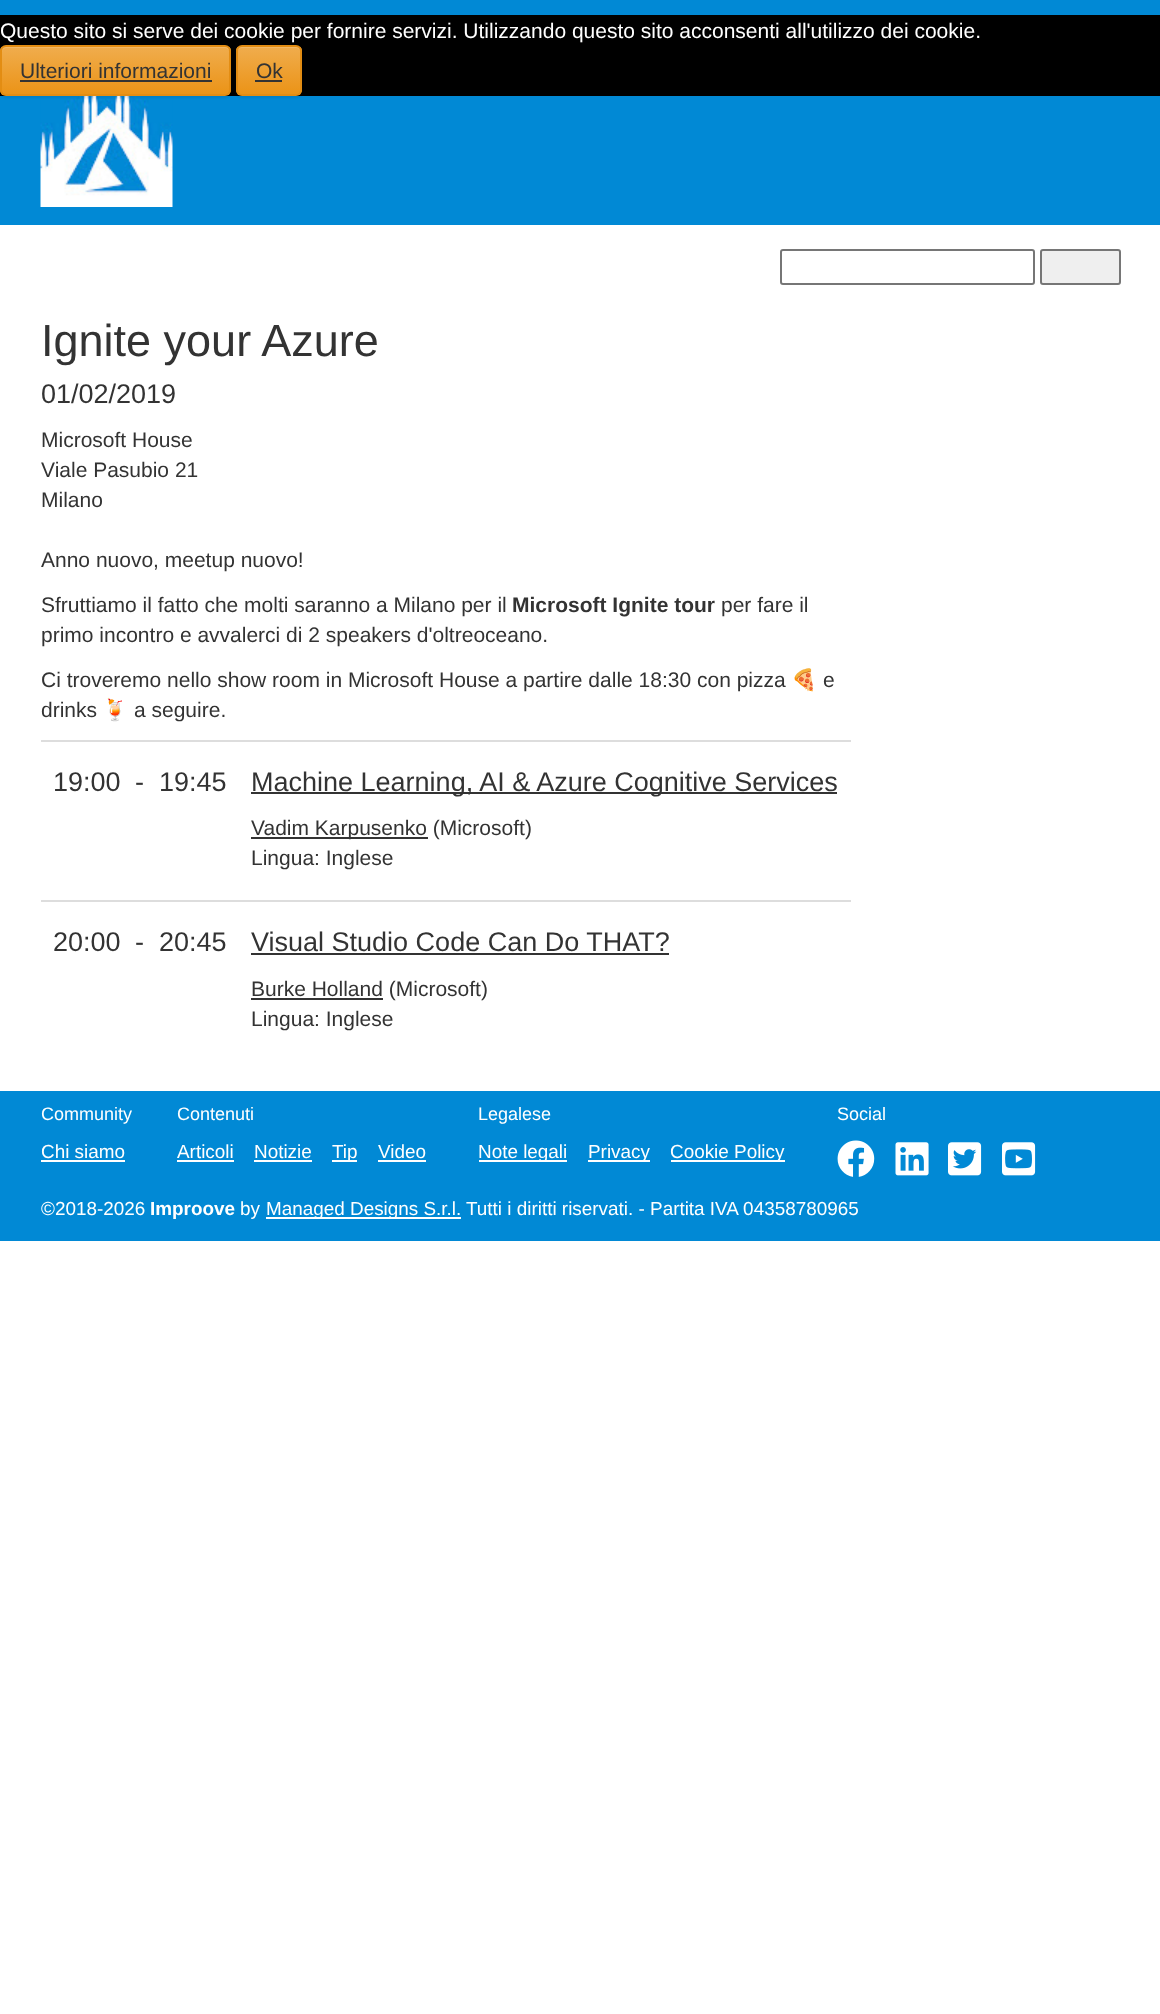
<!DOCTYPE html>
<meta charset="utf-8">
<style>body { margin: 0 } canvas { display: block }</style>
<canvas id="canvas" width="1160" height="2014"></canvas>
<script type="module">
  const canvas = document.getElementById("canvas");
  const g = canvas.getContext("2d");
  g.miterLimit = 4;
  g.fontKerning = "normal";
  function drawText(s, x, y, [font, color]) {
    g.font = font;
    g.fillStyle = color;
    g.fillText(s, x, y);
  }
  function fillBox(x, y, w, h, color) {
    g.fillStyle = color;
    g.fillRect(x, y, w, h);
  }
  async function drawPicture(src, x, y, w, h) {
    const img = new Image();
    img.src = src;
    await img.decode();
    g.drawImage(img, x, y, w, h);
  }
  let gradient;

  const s1 = ["21px Liberation Sans", "#FFFFFF"];
  const s2 = ["21px Liberation Sans", "#333333"];
  const s3 = ["45px Liberation Sans", "#333333"];
  const s4 = ["27px Liberation Sans", "#333333"];
  const s5 = ["bold 21px Liberation Sans", "#333333"];
  const s6 = ["21px Noto Color Emoji", "#333333"];
  const s7 = ["18px Liberation Sans", "#FFFFFF"];
  const s8 = ["18.9px Liberation Sans", "#FFFFFF"];
  const s9 = ["bold 18.9px Liberation Sans", "#FFFFFF"];

  fillBox(0, 0, 1160, 2014, "#FFFFFF");
  fillBox(0, 0, 1160, 225, "#0189D5");
  await drawPicture("pic1.png", 40, 96, 133, 111);
  g.beginPath();
  g.roundRect(781, 250, 253, 34, 2);
  g.strokeStyle = "#767676";
  g.lineWidth = 2;
  g.stroke();
  g.fillStyle = "#EFEFEF";
  g.beginPath();
  g.roundRect(1041, 250, 79, 34, 2);
  g.fill();
  g.stroke();
  fillBox(0, 15, 1160, 81, "#000000");
  drawText("Questo sito si serve dei cookie per fornire servizi. Utilizzando questo sito acconsenti all'utilizzo dei cookie.", 0, 38, s1);
  g.fillStyle = "rgba(0, 0, 0, 0.07)";
  g.filter = "blur(1px)";
  g.beginPath();
  g.roundRect(0, 47, 231, 51, 6);
  g.fill();
  g.filter = "none";
  g.save();
  g.beginPath();
  g.roundRect(0, 45, 231, 51, 6);
  g.clip();
  gradient = g.createLinearGradient(116, 46, 116, 95);
  gradient.addColorStop(0, "#F0AD4E");
  gradient.addColorStop(1, "#EB9316");
  g.fillStyle = gradient;
  g.fillRect(0, 47, 231, 48);
  g.restore();
  g.fillStyle = "#F2B867";
  g.beginPath();
  g.moveTo(6, 48);
  g.lineTo(225, 48);
  g.bezierCurveTo(227, 48, 230, 50, 230, 52);
  g.bezierCurveTo(230, 49, 228, 47, 225, 47);
  g.lineTo(7, 47);
  g.bezierCurveTo(4, 47, 2, 49, 2, 52);
  g.bezierCurveTo(2, 50, 4, 48, 6, 48);
  g.closePath();
  g.fill();
  g.beginPath();
  g.roundRect(1, 46, 229, 49, 5);
  g.strokeStyle = "#E38D13";
  g.stroke();
  drawText("Ulteriori informazioni", 20, 78, s2);
  fillBox(20, 80, 192, 2, "#333333");
  g.fillStyle = "rgba(0, 0, 0, 0.07)";
  g.filter = "blur(1px)";
  g.beginPath();
  g.roundRect(236, 47, 66, 51, 6);
  g.fill();
  g.filter = "none";
  g.save();
  g.beginPath();
  g.roundRect(236, 45, 66, 51, 6);
  g.clip();
  gradient = g.createLinearGradient(269, 46, 269, 95);
  gradient.addColorStop(0, "#F0AD4E");
  gradient.addColorStop(1, "#EB9316");
  g.fillStyle = gradient;
  g.fillRect(236, 47, 66, 48);
  g.restore();
  g.fillStyle = "#F2B867";
  g.beginPath();
  g.moveTo(242, 48);
  g.lineTo(296, 48);
  g.bezierCurveTo(298, 48, 300, 50, 300, 52);
  g.bezierCurveTo(300, 49, 298, 47, 295, 47);
  g.lineTo(242, 47);
  g.bezierCurveTo(239, 47, 237, 49, 237, 52);
  g.bezierCurveTo(237, 50, 239, 48, 242, 48);
  g.closePath();
  g.fill();
  g.beginPath();
  g.roundRect(237, 46, 64, 49, 5);
  g.stroke();
  drawText("Ok", 256, 78, s2);
  fillBox(255, 80, 27, 2, "#333333");
  drawText("Ignite your Azure", 41, 356, s3);
  drawText("01/02/2019", 41, 403, s4);
  drawText("Microsoft House", 41, 447, s2);
  drawText("Viale Pasubio 21", 41, 477, s2);
  drawText("Milano", 41, 507, s2);
  drawText("Anno nuovo, meetup nuovo!", 41, 567, s2);
  drawText("Sfruttiamo il fatto che molti saranno a Milano per il", 41, 612, s2);
  drawText("Microsoft Ignite tour", 512, 612, s5);
  drawText("per fare il", 721, 612, s2);
  drawText("primo incontro e avvalerci di 2 speakers d'oltreoceano.", 41, 642, s2);
  drawText("Ci troveremo nello show room in Microsoft House a partire dalle 18:30 con pizza", 41, 687, s2);
  drawText("🍕", 791, 687, s6);
  drawText("e", 823, 687, s2);
  drawText("drinks", 41, 717, s2);
  drawText("🍹", 102, 717, s6);
  drawText("a seguire.", 134, 717, s2);
  drawText("19:00", 53, 791, s4);
  drawText("-", 135, 791, s4);
  drawText("19:45", 159, 791, s4);
  fillBox(41, 740, 810, 2, "#DDDDDD");
  fillBox(251, 792, 586, 2, "#333333");
  drawText("Machine Learning, AI & Azure Cognitive Services", 251, 791, s4);
  fillBox(251, 837, 177, 2, "#333333");
  drawText("Vadim Karpusenko (Microsoft)", 251, 835, s2);
  drawText("Lingua: Inglese", 251, 865, s2);
  drawText("20:00", 53, 951, s4);
  drawText("-", 135, 951, s4);
  drawText("20:45", 159, 951, s4);
  fillBox(41, 900, 810, 2, "#DDDDDD");
  drawText("Visual Studio Code Can Do THAT?", 251, 951, s4);
  fillBox(251, 953, 418, 2, "#333333");
  fillBox(251, 998, 132, 2, "#333333");
  drawText("Burke Holland (Microsoft)", 251, 996, s2);
  drawText("Lingua: Inglese", 251, 1026, s2);
  fillBox(0, 1091, 1160, 150, "#0189D5");
  drawText("Community", 41, 1120, s7);
  drawText("Chi siamo", 41, 1158, s8);
  fillBox(41, 1160, 84, 2, "#FFFFFF");
  drawText("Contenuti", 177, 1120, s7);
  drawText("Articoli", 177, 1158, s8);
  fillBox(177, 1160, 57, 2, "#FFFFFF");
  drawText("Notizie", 254, 1158, s8);
  fillBox(254, 1160, 58, 2, "#FFFFFF");
  fillBox(332, 1160, 25, 2, "#FFFFFF");
  drawText("Tip", 332, 1158, s8);
  drawText("Video", 378, 1158, s8);
  fillBox(378, 1160, 48, 2, "#FFFFFF");
  drawText("Legalese", 478, 1120, s7);
  fillBox(479, 1160, 88, 2, "#FFFFFF");
  drawText("Note legali", 478, 1158, s8);
  fillBox(588, 1160, 62, 2, "#FFFFFF");
  drawText("Privacy", 588, 1158, s8);
  fillBox(671, 1160, 114, 2, "#FFFFFF");
  drawText("Cookie Policy", 670, 1158, s8);
  drawText("Social", 837, 1120, s7);
  await drawPicture("pic2.png", 837, 1140, 38, 37);
  await drawPicture("pic3.png", 895, 1142, 34, 34);
  await drawPicture("pic4.png", 948, 1142, 34, 34);
  await drawPicture("pic5.png", 1002, 1142, 34, 34);
  drawText("©2018-2026", 41, 1215, s8);
  drawText("Improove", 150, 1215, s9);
  drawText("by", 240, 1215, s8);
  fillBox(266, 1217, 195, 2, "#FFFFFF");
  drawText("Managed Designs S.r.l.", 266, 1215, s8);
  drawText("Tutti i diritti riservati. - Partita IVA 04358780965", 466, 1215, s8);
</script>
